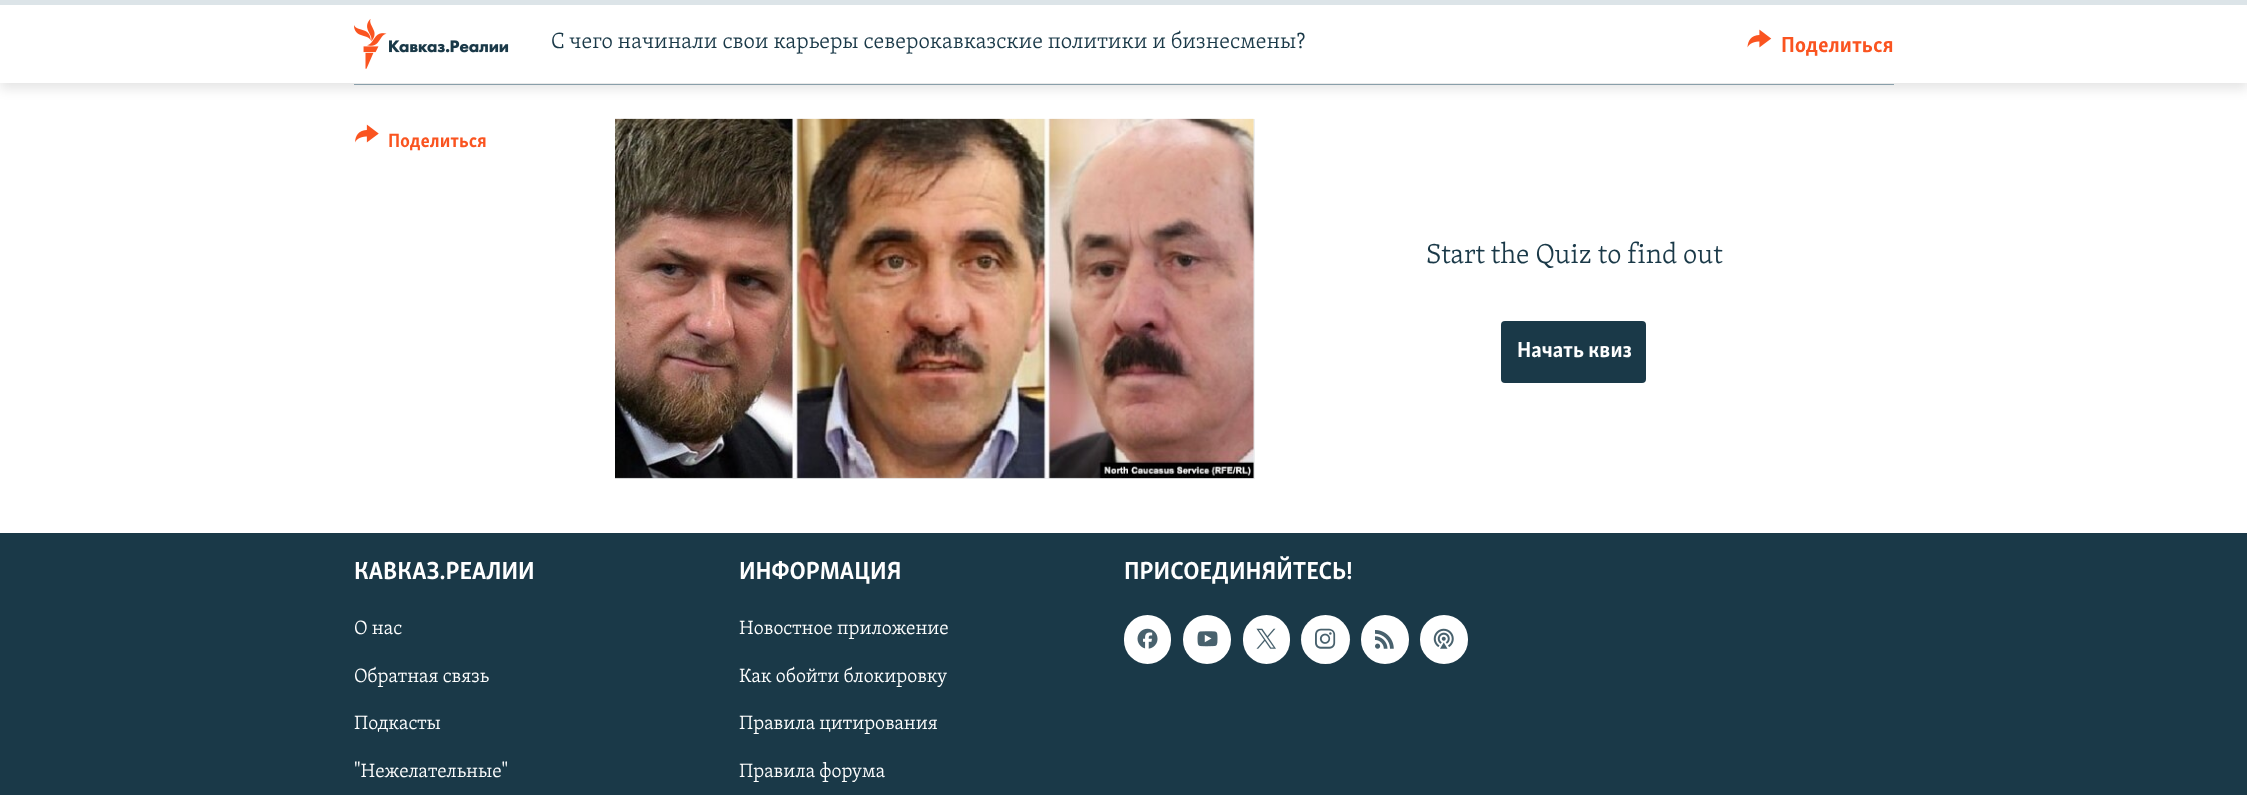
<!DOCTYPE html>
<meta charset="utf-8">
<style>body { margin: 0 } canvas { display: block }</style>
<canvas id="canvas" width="2247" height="795"></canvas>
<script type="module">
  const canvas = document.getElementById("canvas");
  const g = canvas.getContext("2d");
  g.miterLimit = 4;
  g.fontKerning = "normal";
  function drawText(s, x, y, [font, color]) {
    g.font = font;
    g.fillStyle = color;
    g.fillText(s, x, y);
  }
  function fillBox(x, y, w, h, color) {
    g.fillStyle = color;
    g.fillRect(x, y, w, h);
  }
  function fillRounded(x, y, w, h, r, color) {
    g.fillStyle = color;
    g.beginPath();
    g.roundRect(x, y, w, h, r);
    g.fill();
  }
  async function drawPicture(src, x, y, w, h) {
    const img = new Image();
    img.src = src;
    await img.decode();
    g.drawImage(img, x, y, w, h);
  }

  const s1 = ["300 22.5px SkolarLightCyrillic", "#1A3948"];
  const s2 = ["bold 22.5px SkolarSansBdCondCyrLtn", "#FA5420"];
  const s3 = ["bold 19.75px SkolarSansBdCondCyrLtn", "#FA5420"];
  const s4 = ["300 28.1px SkolarLightCyrillic", "#1A3948"];
  const s5 = ["bold 22.5px SkolarSansBdCondCyrLtn", "#FFFFFF"];
  const s6 = ["bold 25.25px SkolarSansBdCondCyrLtn", "#FFFFFF"];
  const s7 = ["300 19.75px SkolarLightCyrillic", "#FFFFFF"];

  fillBox(0, 0, 2247, 795, "#FFFFFF");
  fillBox(354, 84, 1540, 1, "#95ADB9");
  g.fillStyle = "rgba(0, 0, 0, 0.1)";
  g.filter = "blur(6px)";
  g.beginPath();
  g.rect(0, 6, 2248, 83);
  g.fill();
  g.filter = "none";
  fillBox(0, 5, 2247, 78, "#FFFFFF");
  fillBox(0, 0, 2247, 5, "#DCE4E8");
  await drawPicture("pic1.png", 354, 19, 155, 50);
  drawText("С чего начинали свои карьеры северокавказские политики и бизнесмены?", 551, 48, s1);
  await drawPicture("pic2.png", 1747, 29, 25, 19);
  drawText("Поделиться", 1781, 52, s2);
  await drawPicture("pic3.png", 355, 124, 24, 19);
  drawText("Поделиться", 388, 147, s3);
  fillBox(615, 119, 640, 360, "#EDEFF0");
  await drawPicture("pic4.png", 615, 118, 639, 361);
  drawText("Start the Quiz to find out", 1426, 263, s4);
  fillRounded(1501, 321, 145, 62, 4, "#1A3948");
  drawText("Начать квиз", 1517, 357, s5);
  fillBox(0, 533, 2247, 262, "#1A3948");
  drawText("КАВКАЗ.РЕАЛИИ", 354, 579, s6);
  drawText("О нас", 354, 634, s7);
  drawText("Обратная связь", 354, 682, s7);
  drawText("Подкасты", 354, 729, s7);
  drawText("\"Нежелательные\"", 354, 777, s7);
  drawText("ИНФОРМАЦИЯ", 739, 579, s6);
  drawText("Новостное приложение", 739, 634, s7);
  drawText("Как обойти блокировку", 739, 682, s7);
  drawText("Правила цитирования", 739, 729, s7);
  drawText("Правила форума", 739, 777, s7);
  drawText("ПРИСОЕДИНЯЙТЕСЬ!", 1124, 579, s6);
  fillRounded(1124, 615, 47, 49, 23.5, "#FFFFFF");
  await drawPicture("pic5.png", 1137, 628, 21, 21);
  fillRounded(1183, 615, 48, 49, 24, "#FFFFFF");
  await drawPicture("pic6.png", 1197, 631, 21, 16);
  fillRounded(1243, 615, 47, 49, 23.5, "#FFFFFF");
  await drawPicture("pic7.png", 1256, 628, 20, 21);
  g.beginPath();
  g.arc(1325.5, 639.5, 24.5, 0, Math.PI * 2);
  g.fill();
  await drawPicture("pic8.png", 1315, 628, 21, 21);
  fillRounded(1361, 615, 48, 49, 24, "#FFFFFF");
  await drawPicture("pic9.png", 1375, 630, 19, 19);
  fillRounded(1420, 615, 48, 49, 24, "#FFFFFF");
  await drawPicture("pic10.png", 1433, 628, 21, 21);
</script>
